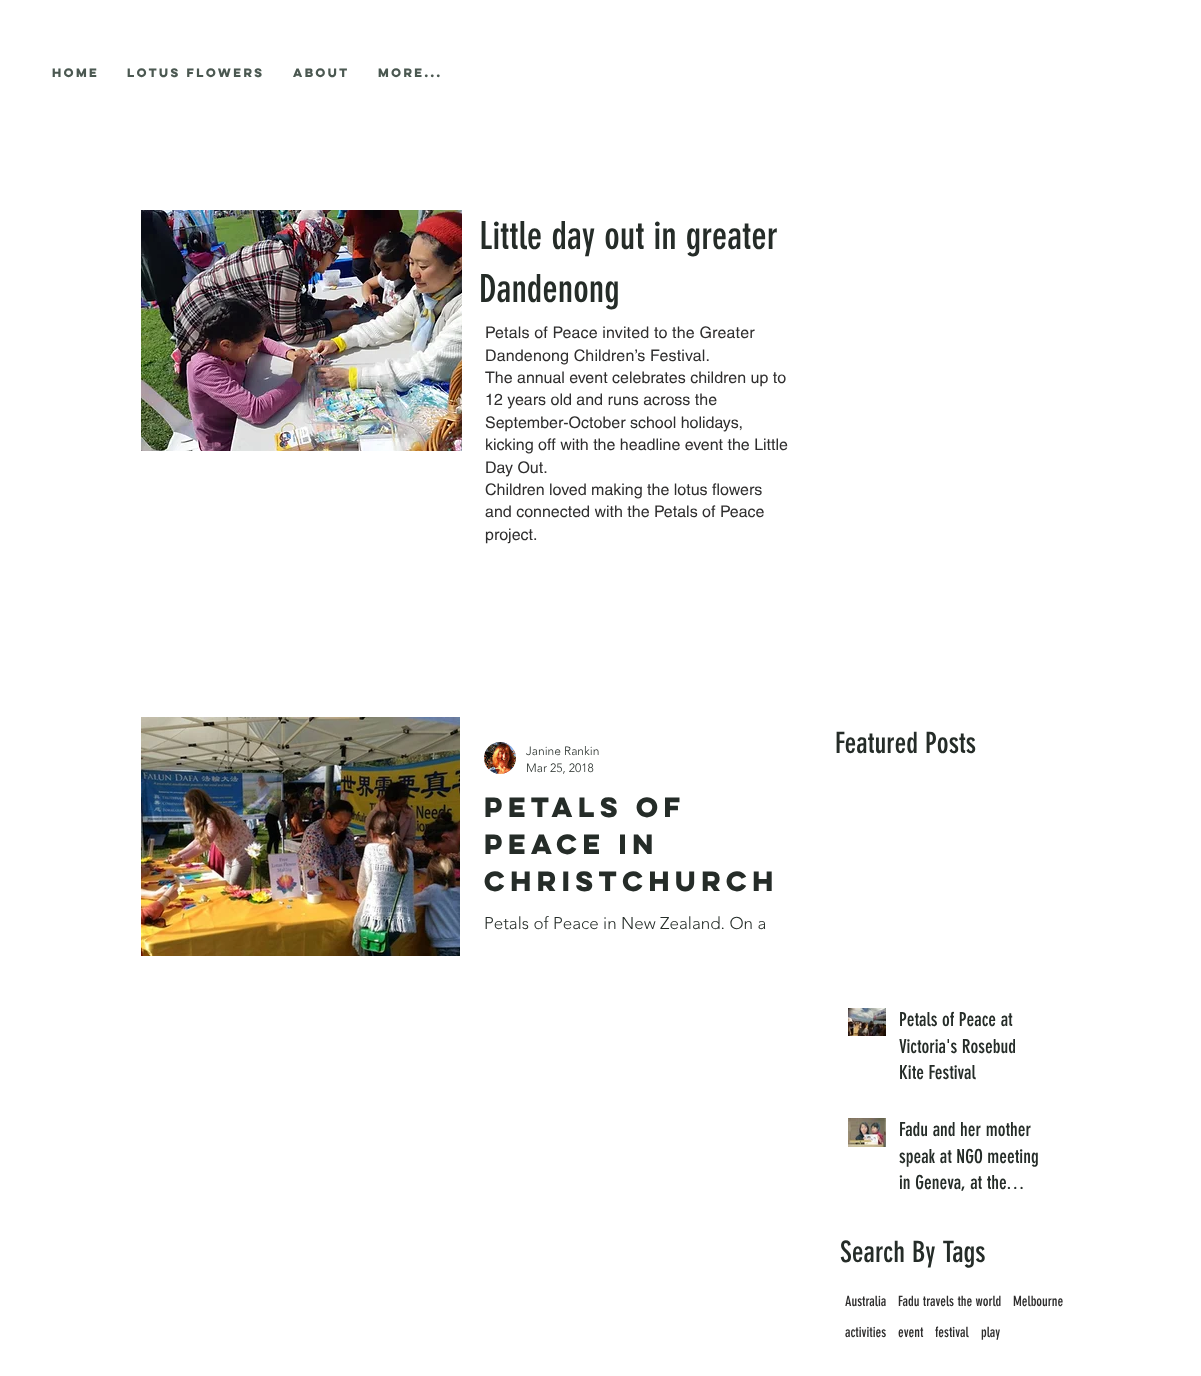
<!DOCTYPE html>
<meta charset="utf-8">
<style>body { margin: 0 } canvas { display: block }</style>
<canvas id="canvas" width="1201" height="1376"></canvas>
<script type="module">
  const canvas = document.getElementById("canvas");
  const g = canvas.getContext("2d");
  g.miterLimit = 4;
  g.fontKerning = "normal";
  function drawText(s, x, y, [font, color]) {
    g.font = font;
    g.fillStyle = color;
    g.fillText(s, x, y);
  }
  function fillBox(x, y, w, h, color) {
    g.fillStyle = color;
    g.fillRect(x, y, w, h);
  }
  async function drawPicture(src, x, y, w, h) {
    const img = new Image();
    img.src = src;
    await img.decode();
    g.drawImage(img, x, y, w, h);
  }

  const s1 = ["bold 11px 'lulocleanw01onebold'", "#4B5851"];
  const s2 = ["38px 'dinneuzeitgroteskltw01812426'", "#252C28"];
  const s3 = ["16px helvetica", "#2F2E2E"];
  const s4 = ["29px 'dinneuzeitgroteskltw01812426'", "#252C28"];
  const s5 = ["300 12px 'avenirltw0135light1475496'", "#252C28"];
  const s6 = ["bold 25px 'lulocleanw01onebold'", "#252C28"];
  const s7 = ["300 17px 'avenirltw0135light1475496'", "#252C28"];
  const s8 = ["19px 'dinneuzeitgroteskltw01812426'", "#252C28"];
  const s9 = ["14px 'dinneuzeitgroteskltw01812426'", "#2F2E2E"];

  fillBox(0, 0, 1201, 1376, "#FFFFFF");
  drawText("HOME", 52, 77, s1);
  drawText("Lotus Flowers", 127, 77, s1);
  drawText("ABOUT", 293, 77, s1);
  drawText("More...", 378, 77, s1);
  await drawPicture("pic1.png", 141, 210, 321, 241);
  drawText("Little day out in greater", 479, 249, s2);
  drawText("Dandenong", 479, 302, s2);
  g.letterSpacing = "0.15px";
  drawText("Petals of Peace invited to the Greater", 485, 338, s3);
  drawText("Dandenong Children’s Festival.", 485, 361, s3);
  g.letterSpacing = "0px";
  drawText("The annual event celebrates children up to", 485, 383, s3);
  drawText("12 years old and runs across the", 485, 405, s3);
  drawText("September-October school holidays,", 485, 428, s3);
  drawText("kicking off with the headline event the Little", 485, 450, s3);
  drawText("Day Out.", 485, 473, s3);
  drawText("Children loved making the lotus flowers", 485, 495, s3);
  drawText("and connected with the Petals of Peace", 485, 517, s3);
  drawText("project.", 485, 540, s3);
  drawText("Featured Posts", 835, 753, s4);
  await drawPicture("pic2.png", 141, 717, 319, 239);
  await drawPicture("pic3.png", 484, 742, 32, 32);
  drawText("Janine Rankin", 526, 755, s5);
  drawText("Mar 25, 2018", 526, 772, s5);
  drawText("Petals of", 484, 817, s6);
  drawText("Peace in", 484, 854, s6);
  drawText("Christchurch", 484, 891, s6);
  drawText("Petals of Peace in New Zealand. On a", 484, 929, s7);
  await drawPicture("pic4.png", 848, 1008, 38, 28);
  drawText("Petals of Peace at", 899, 1026, s8);
  drawText("Victoria's Rosebud", 899, 1053, s8);
  drawText("Kite Festival", 899, 1079, s8);
  await drawPicture("pic5.png", 848, 1118, 38, 29);
  drawText("Fadu and her mother", 899, 1136, s8);
  drawText("speak at NGO meeting", 899, 1163, s8);
  drawText("in Geneva, at the…", 899, 1189, s8);
  drawText("Search By Tags", 840, 1262, s4);
  drawText("Australia", 845, 1306, s9);
  drawText("Fadu travels the world", 898, 1306, s9);
  drawText("Melbourne", 1013, 1306, s9);
  drawText("activities", 845, 1337, s9);
  drawText("event", 898, 1337, s9);
  drawText("festival", 935, 1337, s9);
  drawText("play", 981, 1337, s9);
</script>
